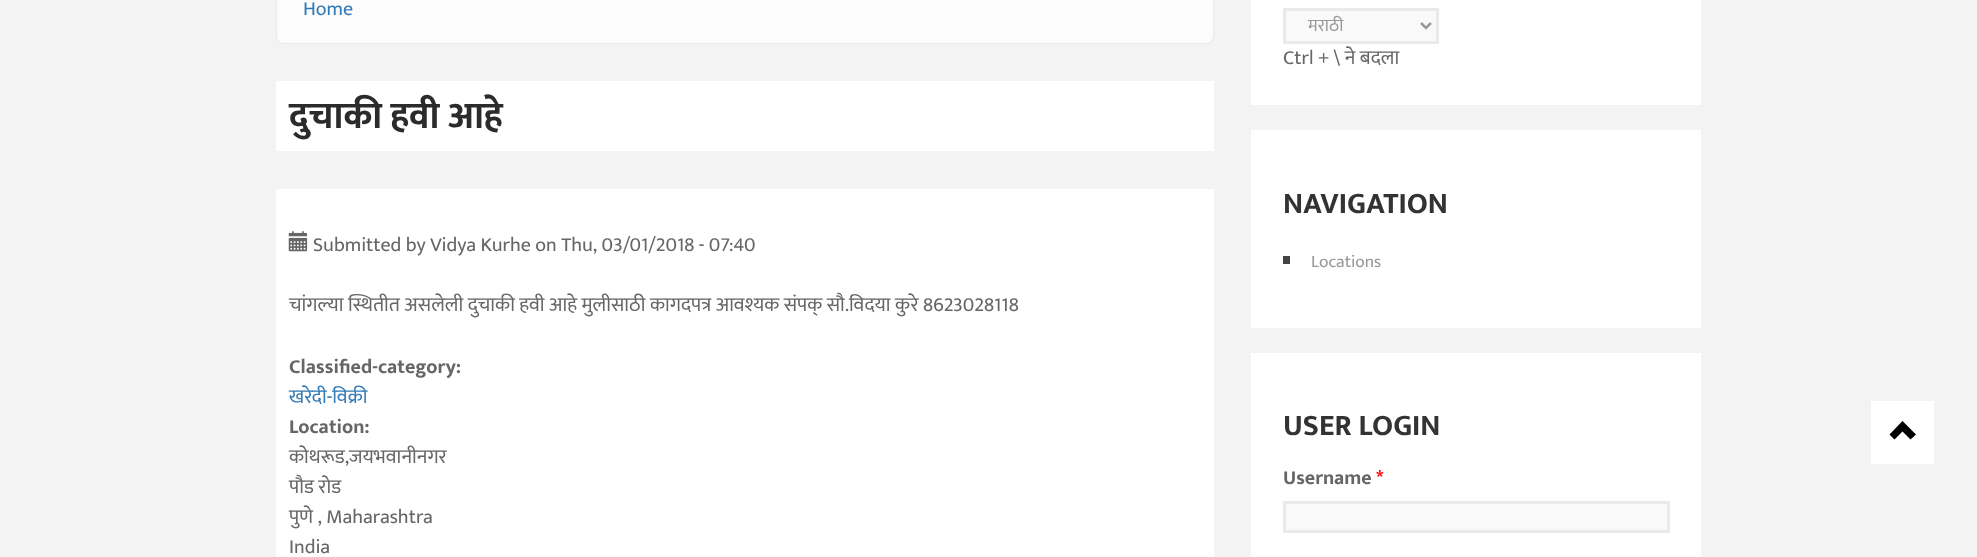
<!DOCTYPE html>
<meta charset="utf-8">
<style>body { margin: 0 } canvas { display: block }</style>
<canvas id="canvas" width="1977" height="557"></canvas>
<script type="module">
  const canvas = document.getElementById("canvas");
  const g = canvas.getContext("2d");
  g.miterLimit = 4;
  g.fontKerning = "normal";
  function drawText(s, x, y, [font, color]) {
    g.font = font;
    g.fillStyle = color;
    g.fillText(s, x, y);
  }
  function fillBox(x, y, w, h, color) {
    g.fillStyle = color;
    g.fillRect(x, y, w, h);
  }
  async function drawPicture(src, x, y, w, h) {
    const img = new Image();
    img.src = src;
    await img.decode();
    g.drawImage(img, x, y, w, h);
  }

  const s1 = ["20px Ek Mukta", "#337AB7"];
  const s2 = ["bold 37.5px Ek Mukta", "#2B2B2B"];
  const s3 = ["20px Ek Mukta", "#666666"];
  const s4 = ["bold 20px Ek Mukta", "#666666"];
  const s5 = ["17.5px Ek Mukta", "#999999"];
  const s6 = ["bold 30px Ek Mukta", "#333333"];
  const s7 = ["bold 20px Ek Mukta", "#FF0000"];

  fillBox(0, 0, 1977, 557, "#F3F3F3");
  g.fillStyle = "#FCFCFC";
  g.beginPath();
  g.roundRect(276.5, -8.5, 937, 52, 7.5);
  g.fill();
  g.strokeStyle = "#EAEAEA";
  g.stroke();
  drawText("Home", 303, 15, s1);
  fillBox(276, 81, 938, 70, "#FFFFFF");
  drawText("दुचाकी हवी आहे", 289, 128, s2);
  fillBox(276, 189, 938, 368, "#FFFFFF");
  await drawPicture("pic1.png", 288, 231, 20, 21);
  drawText("Submitted by Vidya Kurhe on Thu, 03/01/2018 - 07:40", 313, 251, s3);
  drawText("चांगल्या स्थितीत असलेली दुचाकी हवी आहे मुलीसाठी कागदपत्र आवश्यक संपक् सौ.विदया कुरे 8623028118", 289, 311, s3);
  drawText("Classified-category:", 289, 373, s4);
  drawText("खरेदी-विक्री", 289, 403, s1);
  drawText("Location:", 289, 433, s4);
  drawText("कोथरूड,जयभवानीनगर", 289, 463, s3);
  drawText("पौड रोड", 289, 493, s3);
  drawText("पुणे , Maharashtra", 289, 523, s3);
  drawText("India", 289, 553, s3);
  fillBox(1251, 0, 450, 105, "#FFFFFF");
  g.fillStyle = "#F9F9F9";
  g.beginPath();
  g.rect(1284.5, 9.5, 153, 33);
  g.fill();
  g.lineWidth = 3;
  g.stroke();
  g.beginPath();
  g.moveTo(1421, 23);
  g.lineTo(1426, 28);
  g.lineTo(1431, 23);
  g.strokeStyle = "#999999";
  g.lineWidth = 2.5;
  g.stroke();
  drawText("मराठी", 1308, 31, s5);
  drawText("Ctrl + \\ ने बदला", 1283, 64, s3);
  fillBox(1251, 130, 450, 198, "#FFFFFF");
  drawText("NAVIGATION", 1283, 213, s6);
  fillBox(1283, 256, 7, 8, "#444444");
  drawText("Locations", 1311, 267, s5);
  fillBox(1251, 353, 450, 204, "#FFFFFF");
  drawText("USER LOGIN", 1283, 435, s6);
  drawText("Username", 1283, 484, s4);
  drawText("*", 1376, 484, s7);
  g.fillStyle = "#F9F9F9";
  g.beginPath();
  g.rect(1284.5, 502.5, 384, 29);
  g.fill();
  g.strokeStyle = "#EAEAEA";
  g.lineWidth = 3;
  g.stroke();
  fillBox(1871, 401, 63, 63, "#FFFFFF");
  g.fillStyle = "#000000";
  g.beginPath();
  g.moveTo(1889.5, 434.5);
  g.lineTo(1894.5, 439.5);
  g.lineTo(1902.5, 431.5);
  g.lineTo(1910.5, 439.5);
  g.lineTo(1916, 434.5);
  g.lineTo(1902.5, 421);
  g.closePath();
  g.fill();
</script>
